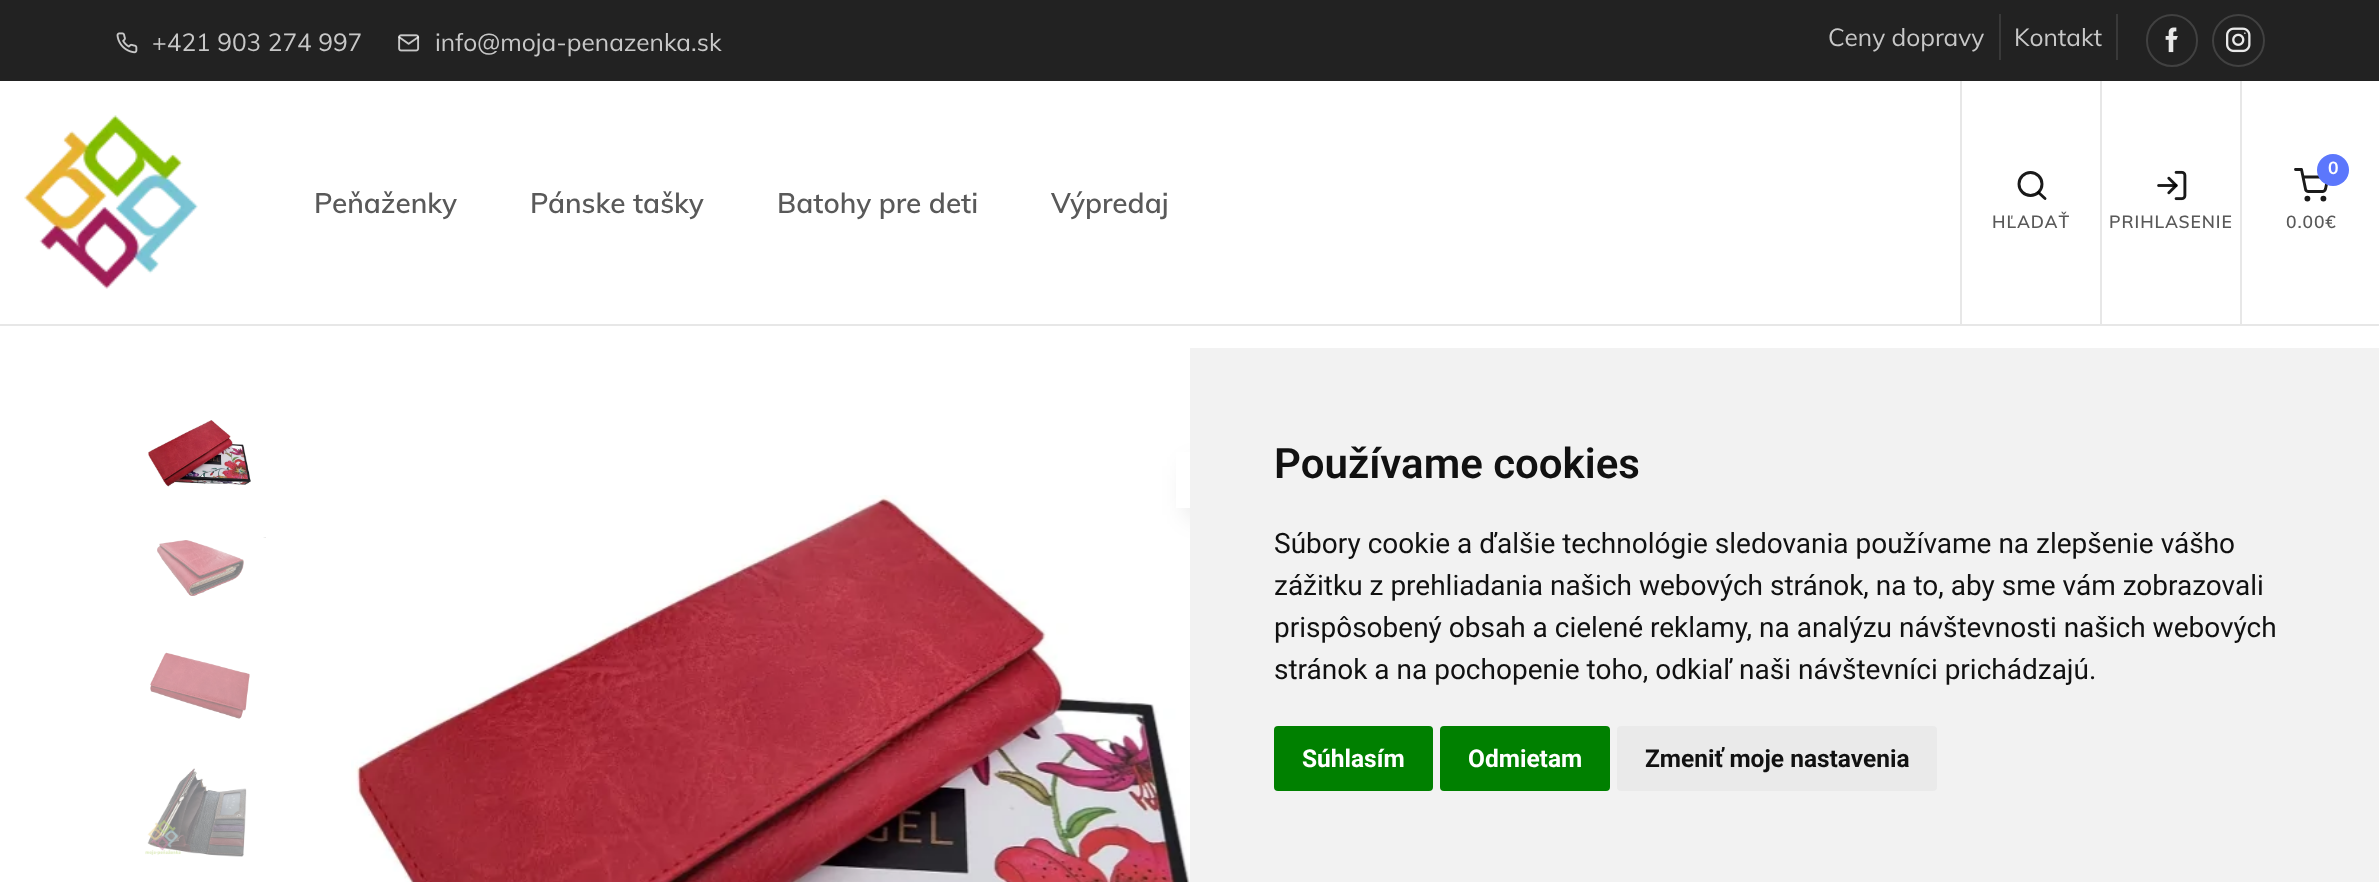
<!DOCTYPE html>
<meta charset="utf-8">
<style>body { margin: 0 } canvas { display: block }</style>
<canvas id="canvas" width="2379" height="882"></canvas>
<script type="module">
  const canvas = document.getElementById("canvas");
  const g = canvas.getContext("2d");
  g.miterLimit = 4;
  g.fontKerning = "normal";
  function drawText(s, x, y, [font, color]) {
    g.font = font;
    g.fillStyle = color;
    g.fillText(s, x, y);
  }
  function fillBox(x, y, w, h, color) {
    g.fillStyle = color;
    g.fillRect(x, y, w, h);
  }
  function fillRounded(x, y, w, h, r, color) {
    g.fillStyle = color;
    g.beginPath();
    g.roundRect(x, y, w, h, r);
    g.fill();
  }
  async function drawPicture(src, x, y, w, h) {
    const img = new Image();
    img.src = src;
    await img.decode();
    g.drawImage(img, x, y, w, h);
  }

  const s1 = ["24.5px Muli", "#C8C8C8"];
  const s2 = ["600 28px Muli", "#595959"];
  const s3 = ["600 17.5px Muli", "#595959"];
  const s4 = ["bold 17.5px Muli", "#FFFFFF"];
  const s5 = ["600 42px Roboto", "#111111"];
  const s6 = ["28px Roboto", "#111111"];
  const s7 = ["bold 24.5px Roboto", "#FFFFFF"];
  const s8 = ["bold 24.5px Roboto", "#111111"];

  fillBox(0, 0, 2379, 882, "#FFFFFF");
  fillBox(0, 0, 2379, 81, "#222222");
  await drawPicture("pic1.png", 116, 32, 22, 22);
  drawText("+421 903 274 997", 152, 51, s1);
  await drawPicture("pic2.png", 398, 34, 22, 18);
  drawText("info@moja-penazenka.sk", 435, 51, s1);
  drawText("Ceny dopravy", 1828, 46, s1);
  fillBox(1999, 14, 2, 46, "#393939");
  drawText("Kontakt", 2014, 46, s1);
  fillBox(2116, 14, 2, 46, "#393939");
  g.beginPath();
  g.roundRect(2147, 15, 50, 51, 25);
  g.strokeStyle = "#414141";
  g.lineWidth = 2;
  g.stroke();
  await drawPicture("pic3.png", 2165, 27, 13, 26);
  g.beginPath();
  g.arc(2238.5, 40.5, 25.5, 0, Math.PI * 2);
  g.stroke();
  await drawPicture("pic4.png", 2226, 27, 25, 26);
  fillBox(0, 324, 2379, 2, "#E7E7E7");
  await drawPicture("pic5.png", 24, 115, 174, 174);
  drawText("Peňaženky", 314, 213, s2);
  drawText("Pánske tašky", 530, 213, s2);
  drawText("Batohy pre deti", 777, 213, s2);
  drawText("Výpredaj", 1051, 213, s2);
  fillBox(1960, 81, 2, 243, "#E7E7E7");
  g.beginPath();
  g.arc(2030.5, 184, 11.5, 0, Math.PI * 2);
  g.strokeStyle = "#1A1A1A";
  g.lineWidth = 2.9;
  g.stroke();
  g.beginPath();
  g.moveTo(2045, 198.5);
  g.lineTo(2038.5, 192.5);
  g.strokeStyle = "rgba(0, 0, 0, 0.9)";
  g.lineCap = "round";
  g.lineJoin = "round";
  g.stroke();
  g.letterSpacing = "0.9px";
  drawText("HĽADAŤ", 1992, 228, s3);
  fillBox(2100, 81, 2, 243, "#E7E7E7");
  await drawPicture("pic6.png", 2157, 170, 30, 31);
  drawText("PRIHLASENIE", 2109, 228, s3);
  fillBox(2240, 81, 2, 243, "#E7E7E7");
  g.beginPath();
  g.arc(2307.4, 198.6, 1.5, 0, Math.PI * 2);
  g.strokeStyle = "#1A1A1A";
  g.stroke();
  g.beginPath();
  g.arc(2323.4, 198.6, 1.5, 0, Math.PI * 2);
  g.stroke();
  g.beginPath();
  g.moveTo(2295.5, 169.5);
  g.lineTo(2301.5, 169.5);
  g.lineTo(2305.5, 189);
  g.bezierCurveTo(2305.5, 190.5, 2307, 191.5, 2308.5, 191.5);
  g.lineTo(2322.5, 191.5);
  g.bezierCurveTo(2324, 191.5, 2325, 190.5, 2325.5, 189);
  g.lineTo(2328, 177);
  g.lineTo(2303, 177);
  g.stroke();
  g.fillStyle = "#5C77FC";
  g.beginPath();
  g.arc(2333, 170, 16, 0, Math.PI * 2);
  g.fill();
  drawText("0", 2328, 174, s4);
  drawText("0.00€", 2286, 228, s3);
  await drawPicture("pic7.png", 148, 420, 103, 67);
  await drawPicture("pic8.png", 157, 537, 109, 59);
  await drawPicture("pic9.png", 150, 652, 100, 67);
  await drawPicture("pic10.png", 145, 768, 102, 89);
  await drawPicture("pic11.png", 351, 495, 839, 387);
  g.fillStyle = "rgba(0, 0, 0, 0.12)";
  g.filter = "blur(13px)";
  g.beginPath();
  g.rect(1187, 466, 119, 49);
  g.fill();
  g.filter = "none";
  fillBox(1176, 452, 14, 56, "#FFFFFF");
  fillBox(1190, 348, 1189, 534, "#F2F2F2");
  g.letterSpacing = "0px";
  drawText("Používame cookies", 1274, 478, s5);
  drawText("Súbory cookie a ďalšie technológie sledovania používame na zlepšenie vášho", 1274, 553, s6);
  drawText("zážitku z prehliadania našich webových stránok, na to, aby sme vám zobrazovali", 1274, 595, s6);
  drawText("prispôsobený obsah a cielené reklamy, na analýzu návštevnosti našich webových", 1274, 637, s6);
  drawText("stránok a na pochopenie toho, odkiaľ naši návštevníci prichádzajú.", 1274, 679, s6);
  fillRounded(1274, 726, 159, 65, 4, "#008000");
  drawText("Súhlasím", 1302, 767, s7);
  fillRounded(1440, 726, 170, 65, 4, "#008000");
  drawText("Odmietam", 1468, 767, s7);
  fillRounded(1617, 726, 320, 65, 4, "#EAEAEA");
  drawText("Zmeniť moje nastavenia", 1645, 767, s8);
</script>
